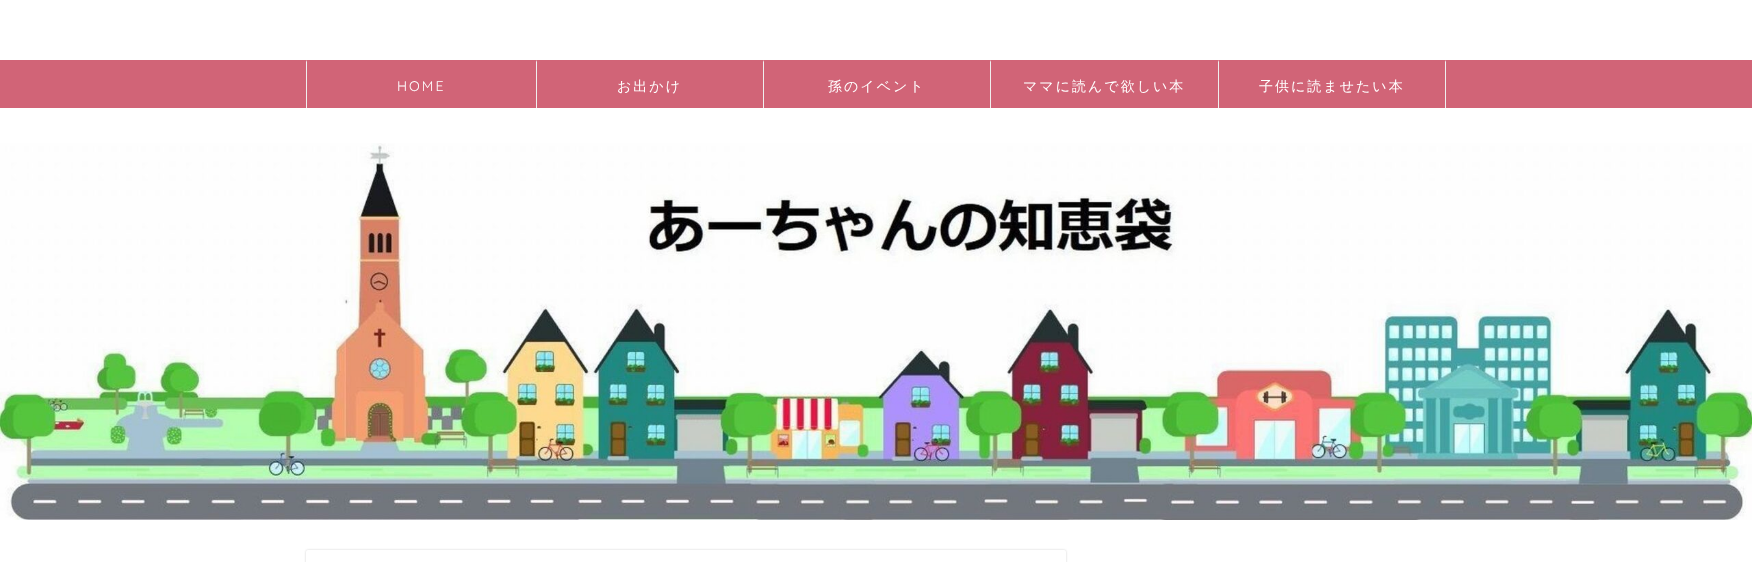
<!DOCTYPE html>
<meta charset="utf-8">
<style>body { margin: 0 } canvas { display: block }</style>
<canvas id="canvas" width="1752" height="562"></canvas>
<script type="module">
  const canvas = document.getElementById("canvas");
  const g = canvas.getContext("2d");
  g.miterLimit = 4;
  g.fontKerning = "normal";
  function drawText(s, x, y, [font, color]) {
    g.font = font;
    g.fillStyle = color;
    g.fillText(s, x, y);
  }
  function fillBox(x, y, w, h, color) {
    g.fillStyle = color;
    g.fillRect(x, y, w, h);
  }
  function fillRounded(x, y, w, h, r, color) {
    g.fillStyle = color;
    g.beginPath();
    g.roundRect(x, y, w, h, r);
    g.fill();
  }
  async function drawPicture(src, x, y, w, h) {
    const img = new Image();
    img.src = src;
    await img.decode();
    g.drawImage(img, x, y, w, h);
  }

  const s1 = ["300 14px Quicksand", "#FFFFFF"];
  const s2 = ["500 14px WenQuanYi Zen Hei", "#FFFFFF"];

  fillBox(0, 0, 1752, 562, "#FFFFFF");
  fillBox(0, 60, 1752, 48, "#D16477");
  g.fillStyle = "#EFEFEF";
  g.beginPath();
  g.moveTo(306, 108);
  g.lineTo(306, 60);
  g.lineTo(307, 62);
  g.lineTo(307, 108);
  g.closePath();
  g.fill();
  g.letterSpacing = "2px";
  drawText("HOME", 397, 91, s1);
  g.fillStyle = "#EFEFEF";
  g.beginPath();
  g.moveTo(536, 108);
  g.lineTo(536, 60);
  g.lineTo(537, 62);
  g.lineTo(537, 108);
  g.closePath();
  g.fill();
  drawText("お出かけ", 617, 91, s2);
  g.fillStyle = "#EFEFEF";
  g.beginPath();
  g.moveTo(763, 108);
  g.lineTo(763, 60);
  g.lineTo(764, 62);
  g.lineTo(764, 108);
  g.closePath();
  g.fill();
  drawText("孫のイベント", 828, 91, s2);
  g.fillStyle = "#EFEFEF";
  g.beginPath();
  g.moveTo(990, 108);
  g.lineTo(990, 60);
  g.lineTo(991, 62);
  g.lineTo(991, 108);
  g.closePath();
  g.fill();
  drawText("ママに読んで欲しい本", 1023, 91, s2);
  g.fillStyle = "#EFEFEF";
  g.beginPath();
  g.moveTo(1446, 60);
  g.lineTo(1446, 108);
  g.lineTo(1445, 108);
  g.lineTo(1445, 62);
  g.closePath();
  g.fill();
  g.beginPath();
  g.moveTo(1218, 108);
  g.lineTo(1218, 60);
  g.lineTo(1219, 62);
  g.lineTo(1219, 108);
  g.closePath();
  g.fill();
  drawText("子供に読ませたい本", 1259, 91, s2);
  await drawPicture("pic1.png", 0, 143, 1752, 377);
  g.fillStyle = "rgba(0, 0, 0, 0.18)";
  g.filter = "blur(1px)";
  g.beginPath();
  g.roundRect(306, 550, 760, 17, 2);
  g.fill();
  g.filter = "none";
  fillRounded(306, 550, 760, 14, 2, "#FFFFFF");
</script>
